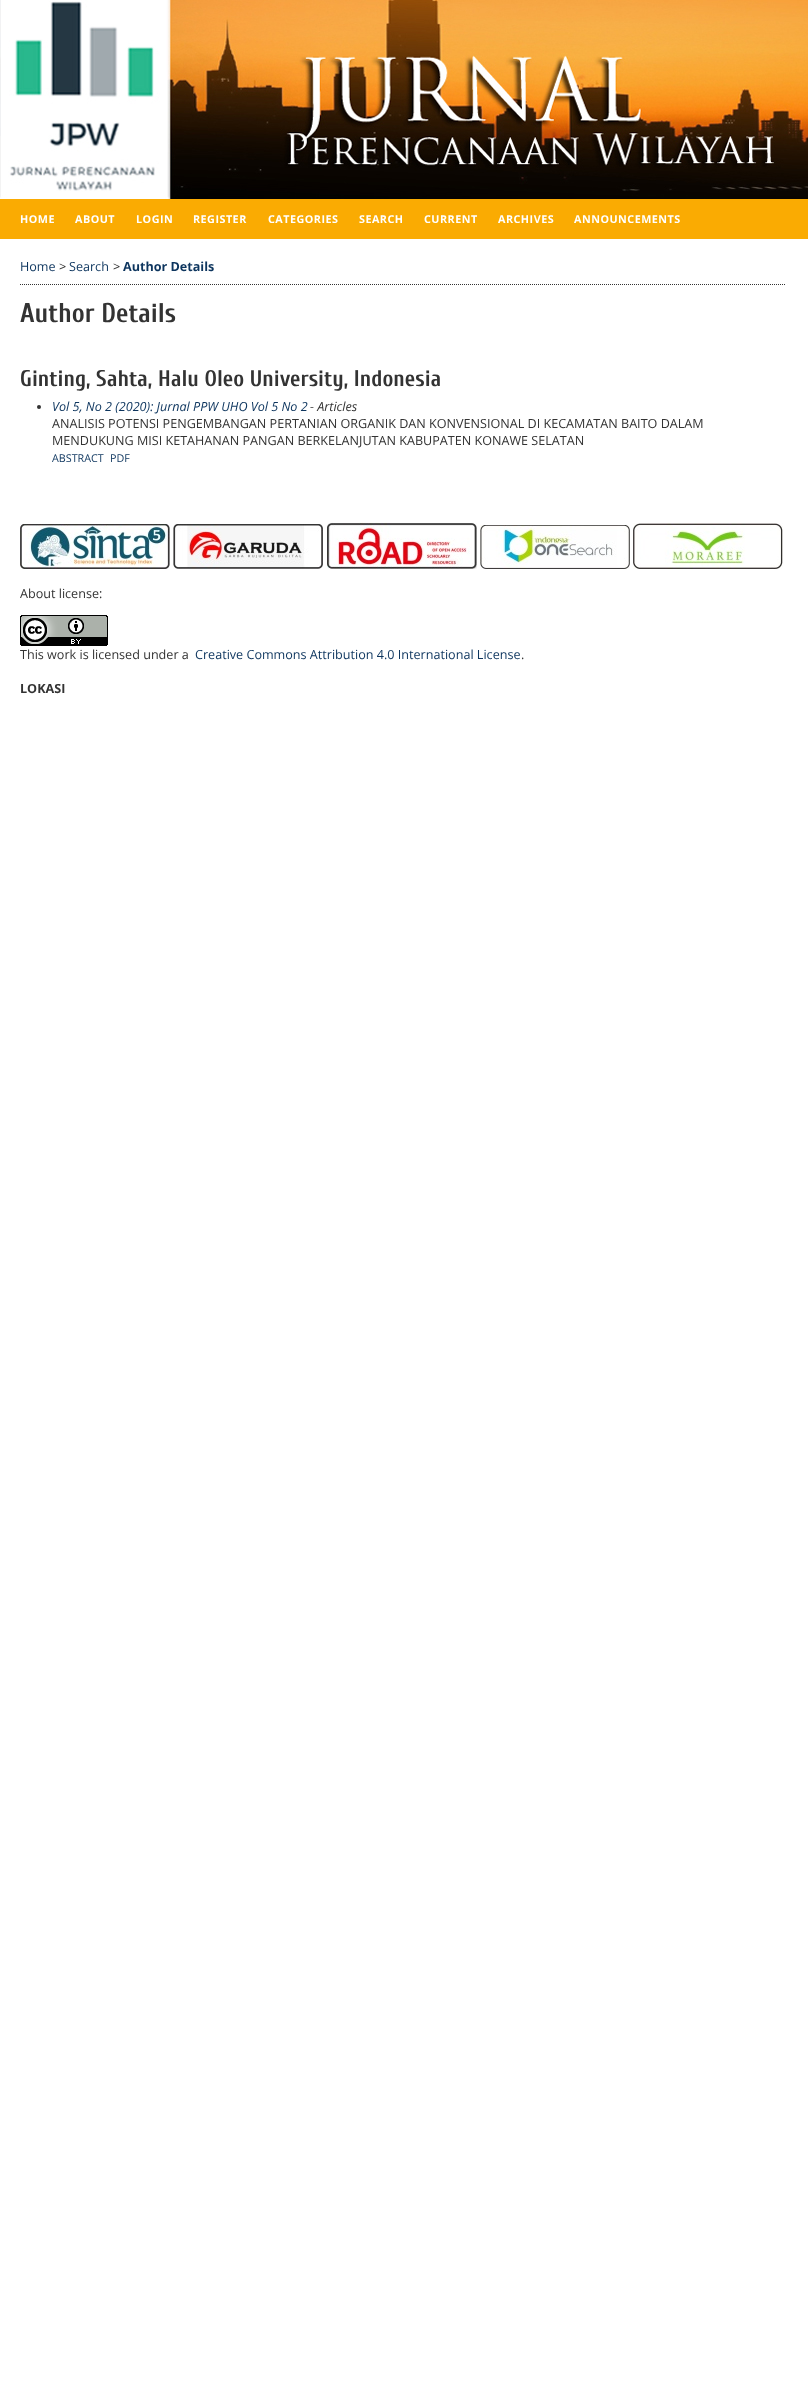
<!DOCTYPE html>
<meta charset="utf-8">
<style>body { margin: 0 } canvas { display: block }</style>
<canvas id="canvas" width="808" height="2391"></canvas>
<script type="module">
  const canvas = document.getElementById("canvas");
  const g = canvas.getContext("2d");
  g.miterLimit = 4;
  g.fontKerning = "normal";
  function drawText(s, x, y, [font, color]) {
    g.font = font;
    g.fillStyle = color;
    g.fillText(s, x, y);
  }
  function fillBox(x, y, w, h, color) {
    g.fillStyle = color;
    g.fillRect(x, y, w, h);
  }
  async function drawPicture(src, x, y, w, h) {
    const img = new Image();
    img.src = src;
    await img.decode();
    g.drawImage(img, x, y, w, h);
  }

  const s1 = ["bold 10.75px Open Sans", "#FFFFFF"];
  const s2 = ["12.6px Open Sans", "#0D355E"];
  const s3 = ["12.6px Open Sans", "#333333"];
  const s4 = ["bold 12.6px Open Sans", "#0D355E"];
  const s5 = ["bold 27px Cuprum", "#333333"];
  const s6 = ["bold 22.7px Cuprum", "#333333"];
  const s7 = ["italic 12.6px Open Sans", "#0D355E"];
  const s8 = ["italic 12.6px Open Sans", "#333333"];
  const s9 = ["10.75px Open Sans", "#0D355E"];
  const s10 = ["bold 12.6px Open Sans", "#333333"];

  fillBox(0, 0, 808, 2391, "#FFFFFF");
  await drawPicture("pic1.png", 0, 0, 808, 199);
  fillBox(0, 199, 808, 40, "#FAAB02");
  g.letterSpacing = "0.5px";
  drawText("HOME", 20, 223, s1);
  drawText("ABOUT", 75, 223, s1);
  drawText("LOGIN", 136, 223, s1);
  drawText("REGISTER", 193, 223, s1);
  drawText("CATEGORIES", 268, 223, s1);
  drawText("SEARCH", 359, 223, s1);
  drawText("CURRENT", 424, 223, s1);
  drawText("ARCHIVES", 498, 223, s1);
  drawText("ANNOUNCEMENTS", 574, 223, s1);
  g.beginPath();
  g.moveTo(20, 284.5);
  g.lineTo(785, 284.5);
  g.strokeStyle = "#333333";
  g.setLineDash([1, 1]);
  g.stroke();
  g.letterSpacing = "0px";
  drawText("Home", 20, 271, s2);
  drawText(">", 59, 271, s3);
  drawText("Search", 69, 271, s2);
  drawText(">", 113, 271, s3);
  drawText("Author Details", 123, 271, s4);
  drawText("Author Details", 20, 322, s5);
  drawText("Ginting, Sahta, Halu Oleo University, Indonesia", 20, 386, s6);
  g.beginPath();
  g.arc(39, 407, 2, 0, Math.PI * 2);
  g.fill();
  drawText("Vol 5, No 2 (2020): Jurnal PPW UHO Vol 5 No 2", 52, 411, s7);
  drawText("- Articles", 310, 411, s8);
  drawText("ANALISIS POTENSI PENGEMBANGAN PERTANIAN ORGANIK DAN KONVENSIONAL DI KECAMATAN BAITO DALAM", 52, 428, s3);
  drawText("MENDUKUNG MISI KETAHANAN PANGAN BERKELANJUTAN KABUPATEN KONAWE SELATAN", 52, 445, s3);
  drawText("ABSTRACT", 52, 462, s9);
  drawText("PDF", 110, 462, s9);
  await drawPicture("pic2.png", 20, 524, 150, 45);
  await drawPicture("pic3.png", 173, 524, 150, 45);
  await drawPicture("pic4.png", 327, 522, 150, 47);
  await drawPicture("pic5.png", 480, 525, 150, 44);
  await drawPicture("pic6.png", 633, 523, 150, 46);
  drawText("About license:", 20, 598, s3);
  await drawPicture("pic7.png", 20, 615, 88, 31);
  drawText("This work is licensed under a", 20, 659, s3);
  drawText("Creative Commons Attribution 4.0 International License", 195, 659, s2);
  drawText(".", 521, 659, s3);
  drawText("LOKASI", 20, 693, s10);
</script>
